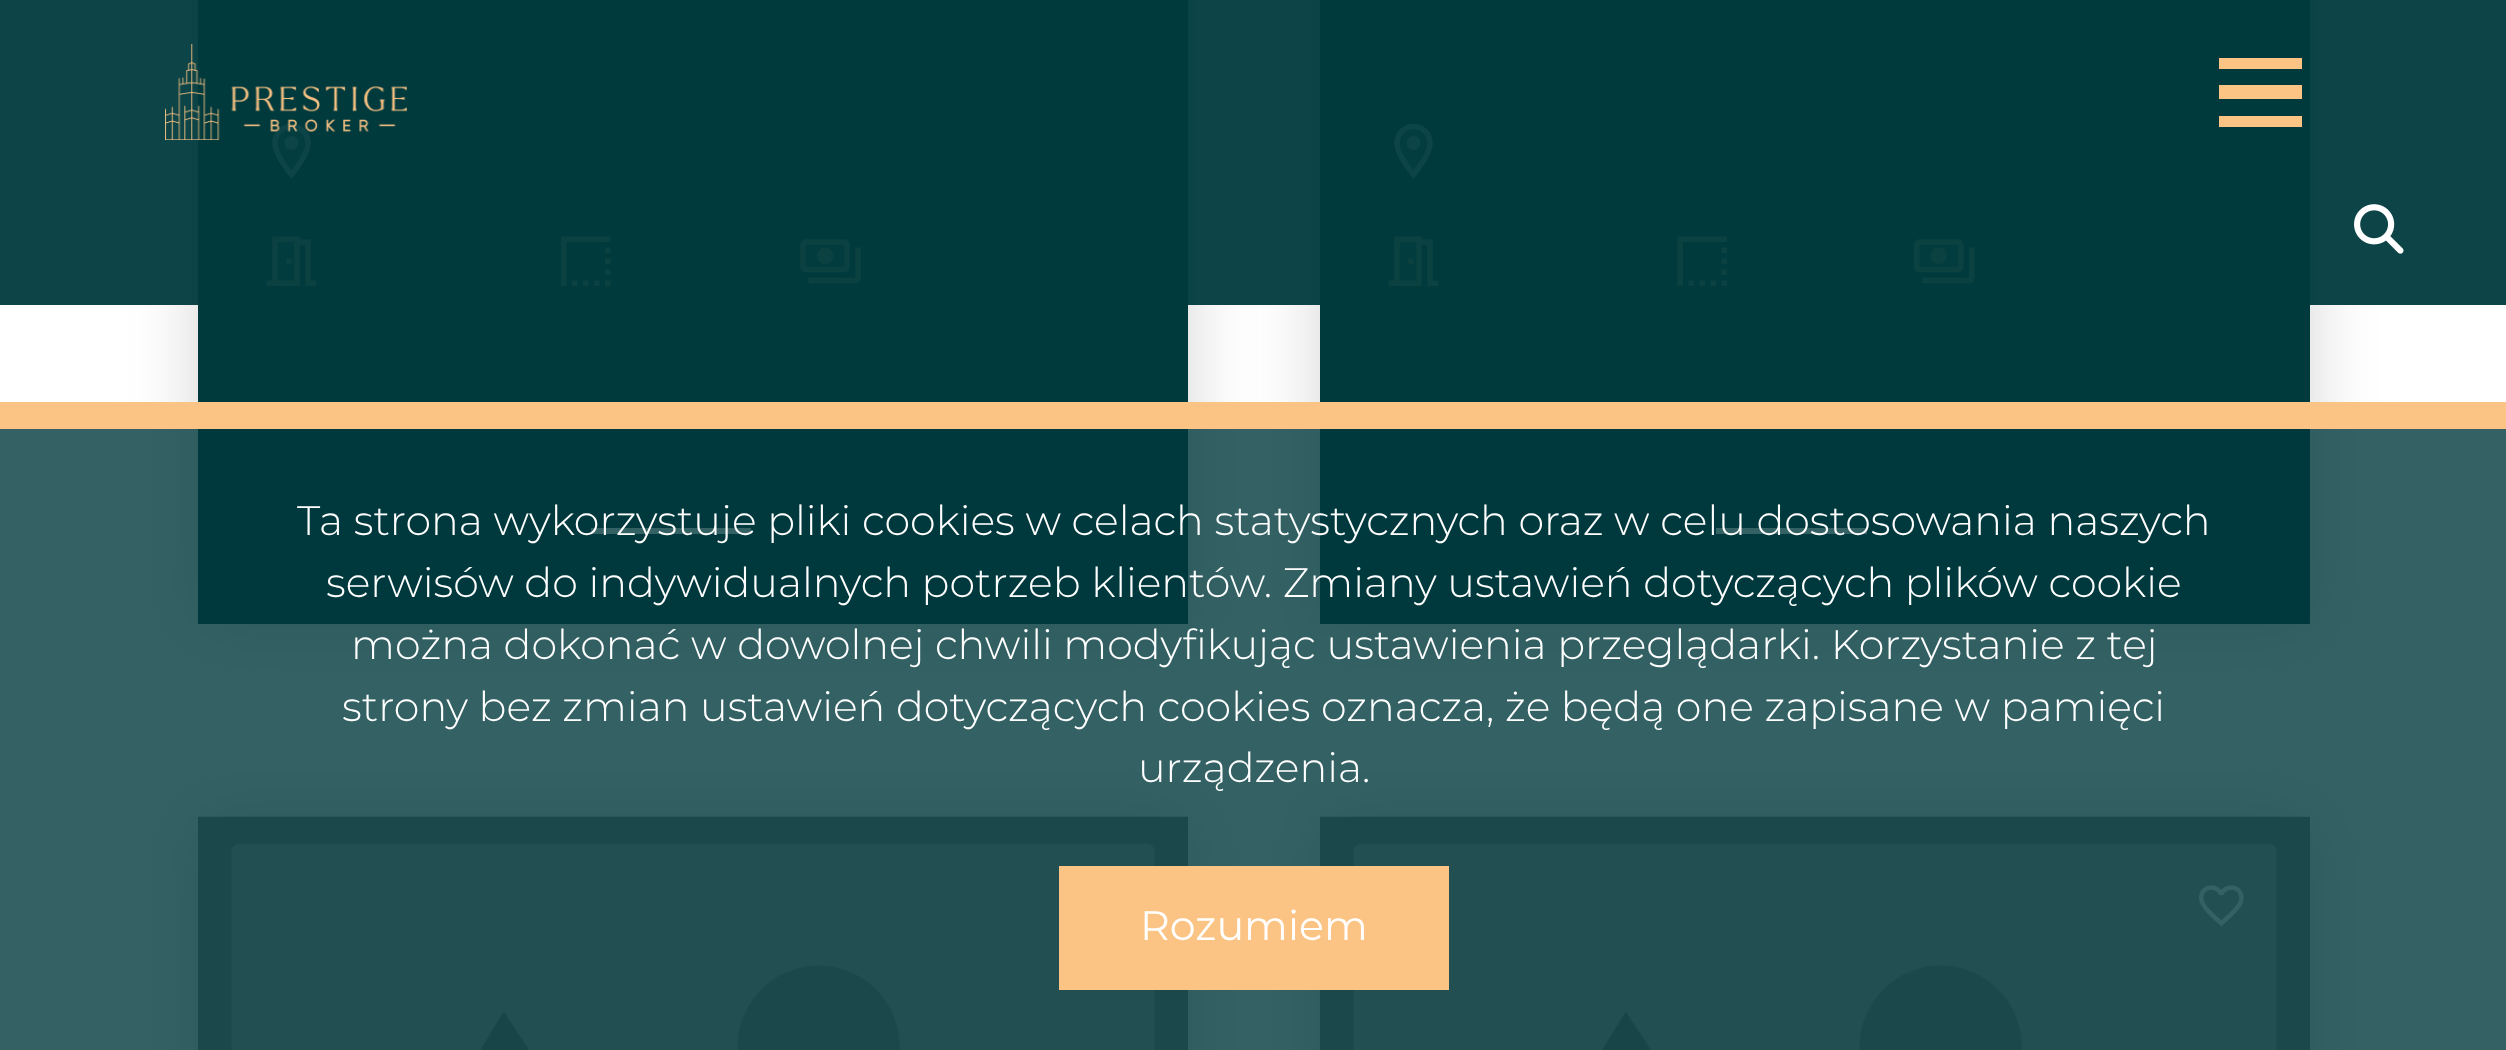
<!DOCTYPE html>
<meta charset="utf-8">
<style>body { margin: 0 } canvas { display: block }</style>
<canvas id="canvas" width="2506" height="1050"></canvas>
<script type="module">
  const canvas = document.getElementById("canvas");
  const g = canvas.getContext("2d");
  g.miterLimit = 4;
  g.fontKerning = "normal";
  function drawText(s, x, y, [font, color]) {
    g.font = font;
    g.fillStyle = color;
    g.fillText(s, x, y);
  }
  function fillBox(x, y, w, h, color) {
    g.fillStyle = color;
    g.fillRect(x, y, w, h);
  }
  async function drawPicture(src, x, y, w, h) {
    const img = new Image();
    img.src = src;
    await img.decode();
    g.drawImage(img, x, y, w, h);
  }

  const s1 = ["300 41.25px Montserrat", "#FFFFFF"];
  const s2 = ["41.25px Montserrat", "#FFFFFF"];

  fillBox(0, 0, 2506, 1050, "#FFFFFF");
  g.fillStyle = "#D5D5D5";
  g.filter = "blur(34.5px)";
  g.beginPath();
  g.rect(198, -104, 990, 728);
  g.fill();
  g.filter = "none";
  fillBox(198, 0, 990, 624, "#003A3D");
  await drawPicture("pic3.png", 272, 123, 39, 56);
  await drawPicture("pic4.png", 266, 236, 51, 50);
  await drawPicture("pic5.png", 561, 236, 50, 50);
  await drawPicture("pic6.png", 800, 239, 61, 45);
  g.fillStyle = "#D5D5D5";
  g.filter = "blur(34.5px)";
  g.beginPath();
  g.rect(1320, -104, 990, 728);
  g.fill();
  g.filter = "none";
  fillBox(1320, 0, 990, 624, "#003A3D");
  await drawPicture("pic3.png", 1394, 123, 39, 56);
  await drawPicture("pic4.png", 1388, 236, 51, 50);
  await drawPicture("pic7.png", 1677, 236, 50, 50);
  await drawPicture("pic8.png", 1914, 239, 61, 45);
  fillBox(0, 0, 2506, 305, "rgba(0, 58, 61, 0.95)");
  await drawPicture("pic1.png", 165, 44, 242, 96);
  fillBox(2219, 58, 83, 11, "#FCC484");
  fillBox(2219, 85, 83, 14, "#FCC484");
  fillBox(2219, 116, 83, 11, "#FCC484");
  await drawPicture("pic2.png", 2354, 204, 50, 50);
  fillBox(591, 528, 160, 6, "#FFFFFF");
  fillBox(1716, 528, 151, 6, "#FFFFFF");
  g.fillStyle = "#D5D5D5";
  g.filter = "blur(34.5px)";
  g.beginPath();
  g.rect(198, 817, 990, 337);
  g.fill();
  g.filter = "none";
  await drawPicture("pic9.png", 198, 816, 990, 234);
  g.filter = "blur(34.5px)";
  g.beginPath();
  g.rect(1320, 817, 990, 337);
  g.fill();
  g.filter = "none";
  await drawPicture("pic9.png", 1320, 816, 990, 234);
  await drawPicture("pic10.png", 2199, 885, 45, 42);
  fillBox(0, 429, 2506, 621, "rgba(0, 58, 61, 0.8)");
  fillBox(0, 402, 2506, 27, "#FCC484");
  drawText("Ta strona wykorzystuje pliki cookies w celach statystycznych oraz w celu dostosowania naszych", 297, 535, s1);
  drawText("serwisów do indywidualnych potrzeb klientów. Zmiany ustawień dotyczących plików cookie", 326, 597, s1);
  drawText("można dokonać w dowolnej chwili modyfikując ustawienia przeglądarki. Korzystanie z tej", 351, 659, s1);
  drawText("strony bez zmian ustawień dotyczących cookies oznacza, że będą one zapisane w pamięci", 342, 721, s1);
  drawText("urządzenia.", 1138, 782, s1);
  fillBox(1059, 866, 390, 124, "#FCC484");
  drawText("Rozumiem", 1140, 940, s2);
</script>
